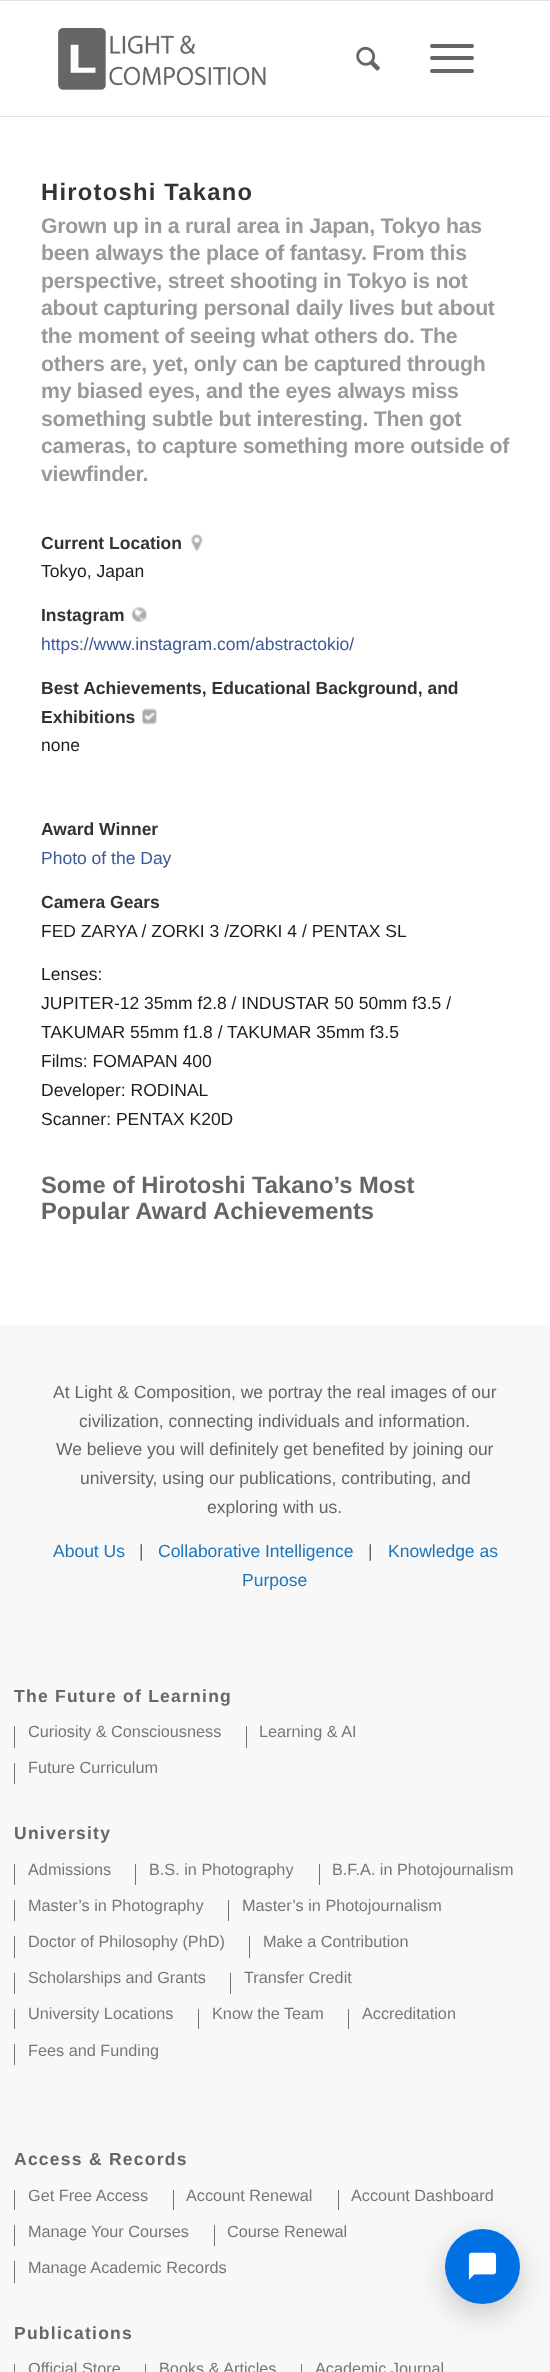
<!DOCTYPE html>
<meta charset="utf-8">
<style>body { margin: 0 } canvas { display: block }</style>
<canvas id="canvas" width="550" height="2372"></canvas>
<script type="module">
  const canvas = document.getElementById("canvas");
  const g = canvas.getContext("2d");
  g.miterLimit = 4;
  g.fontKerning = "normal";
  function drawText(s, x, y, [font, color]) {
    g.font = font;
    g.fillStyle = color;
    g.fillText(s, x, y);
  }
  function fillBox(x, y, w, h, color) {
    g.fillStyle = color;
    g.fillRect(x, y, w, h);
  }
  function fillRounded(x, y, w, h, r, color) {
    g.fillStyle = color;
    g.beginPath();
    g.roundRect(x, y, w, h, r);
    g.fill();
  }
  async function drawPicture(src, x, y, w, h) {
    const img = new Image();
    img.src = src;
    await img.decode();
    g.drawImage(img, x, y, w, h);
  }

  const s1 = ["bold 23.75px Liberation Sans", "#333333"];
  const s2 = ["bold 21.25px Liberation Sans", "#999999"];
  const s3 = ["bold 17.5px Liberation Sans", "#333333"];
  const s4 = ["17.5px Liberation Sans", "#1D1D1F"];
  const s5 = ["17.5px Liberation Sans", "#3B5898"];
  const s6 = ["bold 23.75px Liberation Sans", "#666666"];
  const s7 = ["17.5px Liberation Sans", "#666666"];
  const s8 = ["17.5px Liberation Sans", "#1C75BC"];
  const s9 = ["bold 17.5px Liberation Sans", "#666666"];
  const s10 = ["16.25px Liberation Sans", "#777777"];

  fillBox(0, 0, 550, 2372, "#FFFFFF");
  fillBox(0, 0, 550, 1, "#E1E1E1");
  fillBox(0, 116, 550, 1, "#E1E1E1");
  await drawPicture("pic1.png", 58, 28, 208, 62);
  await drawPicture("pic2.png", 356, 46, 24, 25);
  fillRounded(430, 56, 44, 4, 2, "#666666");
  fillRounded(430, 44, 44, 4, 2, "#666666");
  fillRounded(430, 69, 44, 4, 2, "#666666");
  g.letterSpacing = "1.25px";
  drawText("Hirotoshi Takano", 41, 200, s1);
  g.letterSpacing = "-0.25px";
  drawText("Grown up in a rural area in Japan, Tokyo has", 41, 233, s2);
  drawText("been always the place of fantasy. From this", 41, 260, s2);
  drawText("perspective, street shooting in Tokyo is not", 41, 288, s2);
  drawText("about capturing personal daily lives but about", 41, 315, s2);
  drawText("the moment of seeing what others do. The", 41, 343, s2);
  drawText("others are, yet, only can be captured through", 41, 371, s2);
  drawText("my biased eyes, and the eyes always miss", 41, 398, s2);
  drawText("something subtle but interesting. Then got", 41, 426, s2);
  drawText("cameras, to capture something more outside of", 41, 453, s2);
  drawText("viewfinder.", 41, 481, s2);
  g.letterSpacing = "0px";
  drawText("Current Location", 41, 549, s3);
  await drawPicture("pic3.png", 190, 534, 13, 18);
  drawText("Tokyo, Japan", 41, 577, s4);
  drawText("Instagram", 41, 621, s3);
  await drawPicture("pic4.png", 131, 607, 16, 16);
  drawText("https://www.instagram.com/abstractokio/", 41, 650, s5);
  drawText("Best Achievements, Educational Background, and", 41, 694, s3);
  drawText("Exhibitions", 41, 723, s3);
  await drawPicture("pic5.png", 141, 708, 16, 17);
  drawText("none", 41, 751, s4);
  drawText("Award Winner", 41, 835, s3);
  drawText("Photo of the Day", 41, 864, s5);
  drawText("Camera Gears", 41, 908, s3);
  drawText("FED ZARYA / ZORKI 3 /ZORKI 4 / PENTAX SL", 41, 937, s4);
  drawText("Lenses:", 41, 980, s4);
  drawText("JUPITER-12 35mm f2.8 / INDUSTAR 50 50mm f3.5 /", 41, 1009, s4);
  drawText("TAKUMAR 55mm f1.8 / TAKUMAR 35mm f3.5", 41, 1038, s4);
  drawText("Films: FOMAPAN 400", 41, 1067, s4);
  drawText("Developer: RODINAL", 41, 1096, s4);
  drawText("Scanner: PENTAX K20D", 41, 1125, s4);
  drawText("Some of Hirotoshi Takano’s Most", 41, 1193, s6);
  drawText("Popular Award Achievements", 41, 1219, s6);
  fillBox(0, 1325, 550, 1047, "#F8F8F8");
  drawText("At Light & Composition, we portray the real images of our", 53, 1398, s7);
  drawText("civilization, connecting individuals and information.", 79, 1427, s7);
  drawText("We believe you will definitely get benefited by joining our", 56, 1455, s7);
  drawText("university, using our publications, contributing, and", 80, 1484, s7);
  drawText("exploring with us.", 207, 1513, s7);
  drawText("About Us", 53, 1557, s8);
  drawText("|", 139, 1557, s7);
  drawText("Collaborative Intelligence", 158, 1557, s8);
  drawText("|", 368, 1557, s7);
  drawText("Knowledge as", 388, 1557, s8);
  drawText("Purpose", 242, 1586, s8);
  g.letterSpacing = "1.25px";
  drawText("The Future of Learning", 14, 1702, s9);
  fillBox(14, 1726, 1, 22, "#6C757D");
  g.letterSpacing = "0px";
  drawText("Curiosity & Consciousness", 28, 1737, s10);
  fillBox(246, 1726, 1, 22, "#6C757D");
  drawText("Learning & AI", 259, 1737, s10);
  fillBox(14, 1763, 1, 21, "#6C757D");
  drawText("Future Curriculum", 28, 1773, s10);
  g.letterSpacing = "1.25px";
  drawText("University", 14, 1839, s9);
  fillBox(14, 1864, 1, 21, "#6C757D");
  g.letterSpacing = "0px";
  drawText("Admissions", 28, 1875, s10);
  fillBox(135, 1864, 1, 21, "#6C757D");
  drawText("B.S. in Photography", 149, 1875, s10);
  fillBox(319, 1864, 1, 21, "#6C757D");
  drawText("B.F.A. in Photojournalism", 332, 1875, s10);
  fillBox(14, 1900, 1, 21, "#6C757D");
  drawText("Master’s in Photography", 28, 1911, s10);
  fillBox(228, 1900, 1, 21, "#6C757D");
  drawText("Master’s in Photojournalism", 242, 1911, s10);
  fillBox(14, 1936, 1, 22, "#6C757D");
  drawText("Doctor of Philosophy (PhD)", 28, 1947, s10);
  fillBox(249, 1936, 1, 22, "#6C757D");
  drawText("Make a Contribution", 263, 1947, s10);
  fillBox(14, 1973, 1, 21, "#6C757D");
  drawText("Scholarships and Grants", 28, 1983, s10);
  fillBox(230, 1973, 1, 21, "#6C757D");
  drawText("Transfer Credit", 244, 1983, s10);
  fillBox(14, 2009, 1, 20, "#6C757D");
  drawText("University Locations", 28, 2019, s10);
  fillBox(198, 2009, 1, 20, "#6C757D");
  drawText("Know the Team", 212, 2019, s10);
  fillBox(348, 2009, 1, 20, "#6C757D");
  drawText("Accreditation", 362, 2019, s10);
  fillBox(14, 2044, 1, 21, "#6C757D");
  drawText("Fees and Funding", 28, 2056, s10);
  g.letterSpacing = "1.25px";
  drawText("Access & Records", 14, 2165, s9);
  fillBox(14, 2190, 1, 20, "#6C757D");
  g.letterSpacing = "0px";
  drawText("Get Free Access", 28, 2201, s10);
  fillBox(173, 2190, 1, 20, "#6C757D");
  drawText("Account Renewal", 186, 2201, s10);
  fillBox(338, 2190, 1, 20, "#6C757D");
  drawText("Account Dashboard", 351, 2201, s10);
  fillBox(14, 2225, 1, 21, "#6C757D");
  drawText("Manage Your Courses", 28, 2237, s10);
  fillBox(214, 2225, 1, 21, "#6C757D");
  drawText("Course Renewal", 227, 2237, s10);
  fillBox(14, 2261, 1, 22, "#6C757D");
  drawText("Manage Academic Records", 28, 2273, s10);
  g.letterSpacing = "1.25px";
  drawText("Publications", 14, 2339, s9);
  fillBox(14, 2364, 1, 8, "#6C757D");
  g.letterSpacing = "0px";
  drawText("Official Store", 28, 2374, s10);
  fillBox(145, 2364, 1, 8, "#6C757D");
  drawText("Books & Articles", 159, 2374, s10);
  fillBox(301, 2364, 1, 8, "#6C757D");
  drawText("Academic Journal", 315, 2374, s10);
  g.fillStyle = "rgba(0, 0, 0, 0.2)";
  g.filter = "blur(15px)";
  g.beginPath();
  g.roundRect(445, 2239, 75, 75, 37.5);
  g.fill();
  g.filter = "none";
  g.fillStyle = "#0071E3";
  g.beginPath();
  g.arc(482.5, 2266.5, 37.5, 0, Math.PI * 2);
  g.fill();
  await drawPicture("pic6.png", 468, 2252, 29, 28);
</script>
